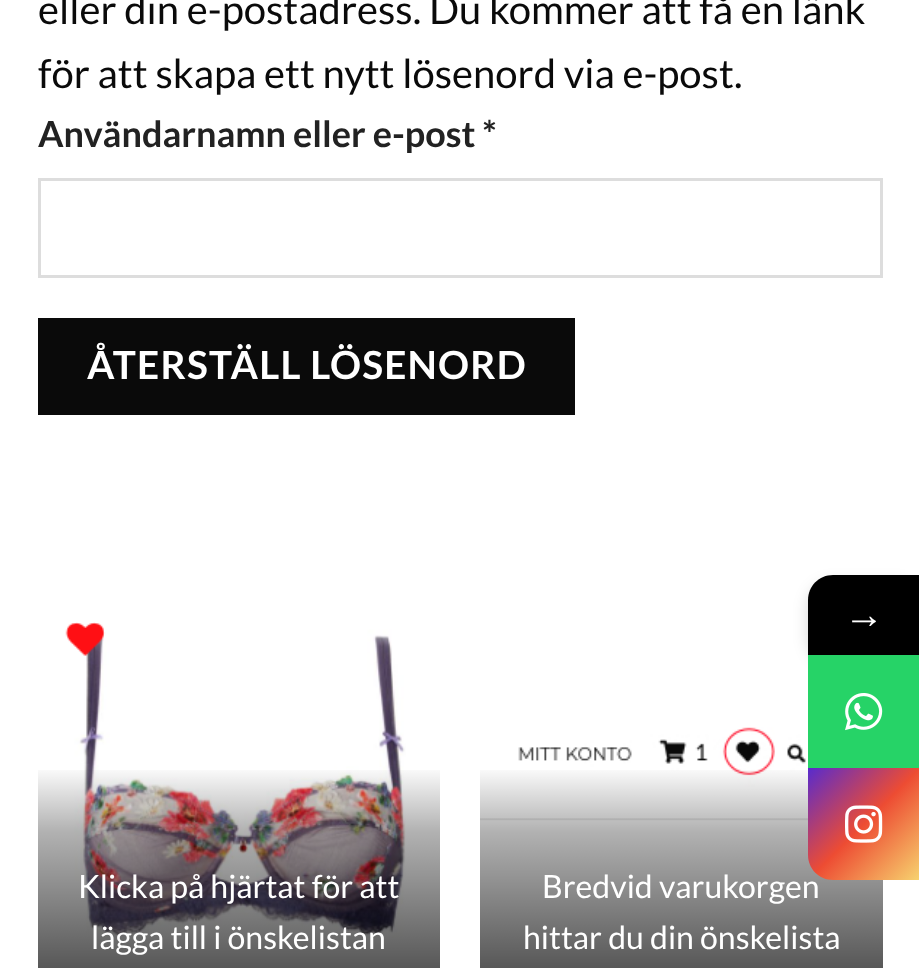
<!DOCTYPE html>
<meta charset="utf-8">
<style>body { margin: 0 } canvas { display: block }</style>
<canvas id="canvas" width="919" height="968"></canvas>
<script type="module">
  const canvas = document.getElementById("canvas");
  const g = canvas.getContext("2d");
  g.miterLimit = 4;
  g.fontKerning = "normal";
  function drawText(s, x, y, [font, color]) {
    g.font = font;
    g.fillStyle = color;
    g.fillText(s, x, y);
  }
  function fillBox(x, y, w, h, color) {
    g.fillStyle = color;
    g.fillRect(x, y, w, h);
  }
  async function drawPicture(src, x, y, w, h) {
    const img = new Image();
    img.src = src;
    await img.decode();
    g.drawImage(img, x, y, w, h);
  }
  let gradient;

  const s1 = ["40px Lato", "#0A0A0A"];
  const s2 = ["bold 36px Lato", "#222222"];
  const s3 = ["bold 38.75px Lato", "#FFFFFF"];
  const s4 = ["32px Lato", "#FFFFFF"];
  const s5 = ["40px Liberation Serif", "#FFFFFF"];

  fillBox(0, 0, 919, 968, "#FFFFFF");
  drawText("eller din e-postadress. Du kommer att få en länk", 38, 24, s1);
  drawText("för att skapa ett nytt lösenord via e-post.", 38, 88, s1);
  drawText("Användarnamn eller e-post *", 38, 147, s2);
  g.strokeStyle = "#DDDDDD";
  g.lineWidth = 3;
  g.strokeRect(39.5, 179.5, 842, 97);
  fillBox(38, 318, 537, 97, "#0A0A0A");
  g.letterSpacing = "1.2px";
  drawText("ÅTERSTÄLL LÖSENORD", 87, 379, s3);
  await drawPicture("pic1.png", 65, 622, 341, 316);
  gradient = g.createLinearGradient(239, 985, 239, 765);
  gradient.addColorStop(0, "rgba(0, 0, 0, 0.7)");
  gradient.addColorStop(0.7, "rgba(0, 0, 0, 0.3)");
  gradient.addColorStop(1, "rgba(0, 0, 0, 0)");
  g.fillStyle = gradient;
  g.fillRect(38, 770, 402, 198);
  g.letterSpacing = "0px";
  drawText("Klicka på hjärtat för att", 78, 898, s4);
  drawText("lägga till i önskelistan", 91, 949, s4);
  await drawPicture("pic2.png", 480, 727, 328, 94);
  gradient = g.createLinearGradient(681, 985, 681, 765);
  gradient.addColorStop(0, "rgba(0, 0, 0, 0.7)");
  gradient.addColorStop(0.7, "rgba(0, 0, 0, 0.3)");
  gradient.addColorStop(1, "rgba(0, 0, 0, 0)");
  g.fillStyle = gradient;
  g.fillRect(480, 770, 403, 198);
  drawText("Bredvid varukorgen", 542, 898, s4);
  drawText("hittar du din önskelista", 523, 949, s4);
  g.fillStyle = "rgba(0, 0, 0, 0.16)";
  g.filter = "blur(7.5px)";
  g.beginPath();
  g.roundRect(808, 583, 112, 80, 25);
  g.fill();
  g.filter = "none";
  g.fillStyle = "#000000";
  g.beginPath();
  g.moveTo(833, 575);
  g.lineTo(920, 575);
  g.lineTo(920, 655);
  g.lineTo(808, 655);
  g.lineTo(808, 600);
  g.bezierCurveTo(808, 586, 819, 575, 833, 575);
  g.closePath();
  g.fill();
  drawText("→", 844, 628, s5);
  fillBox(808, 655, 111, 113, "#26D367");
  await drawPicture("pic3.png", 845, 693, 38, 38);
  gradient = g.createLinearGradient(808, 768, 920, 880);
  gradient.addColorStop(0, "#582BCD");
  gradient.addColorStop(0.5, "#ED4C33");
  gradient.addColorStop(1, "#F7D36F");
  g.fillStyle = gradient;
  g.beginPath();
  g.moveTo(808, 768);
  g.lineTo(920, 768);
  g.lineTo(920, 880);
  g.lineTo(833, 880);
  g.bezierCurveTo(819, 880, 808, 869, 808, 855);
  g.closePath();
  g.fill();
  await drawPicture("pic4.png", 845, 805, 38, 38);
</script>
